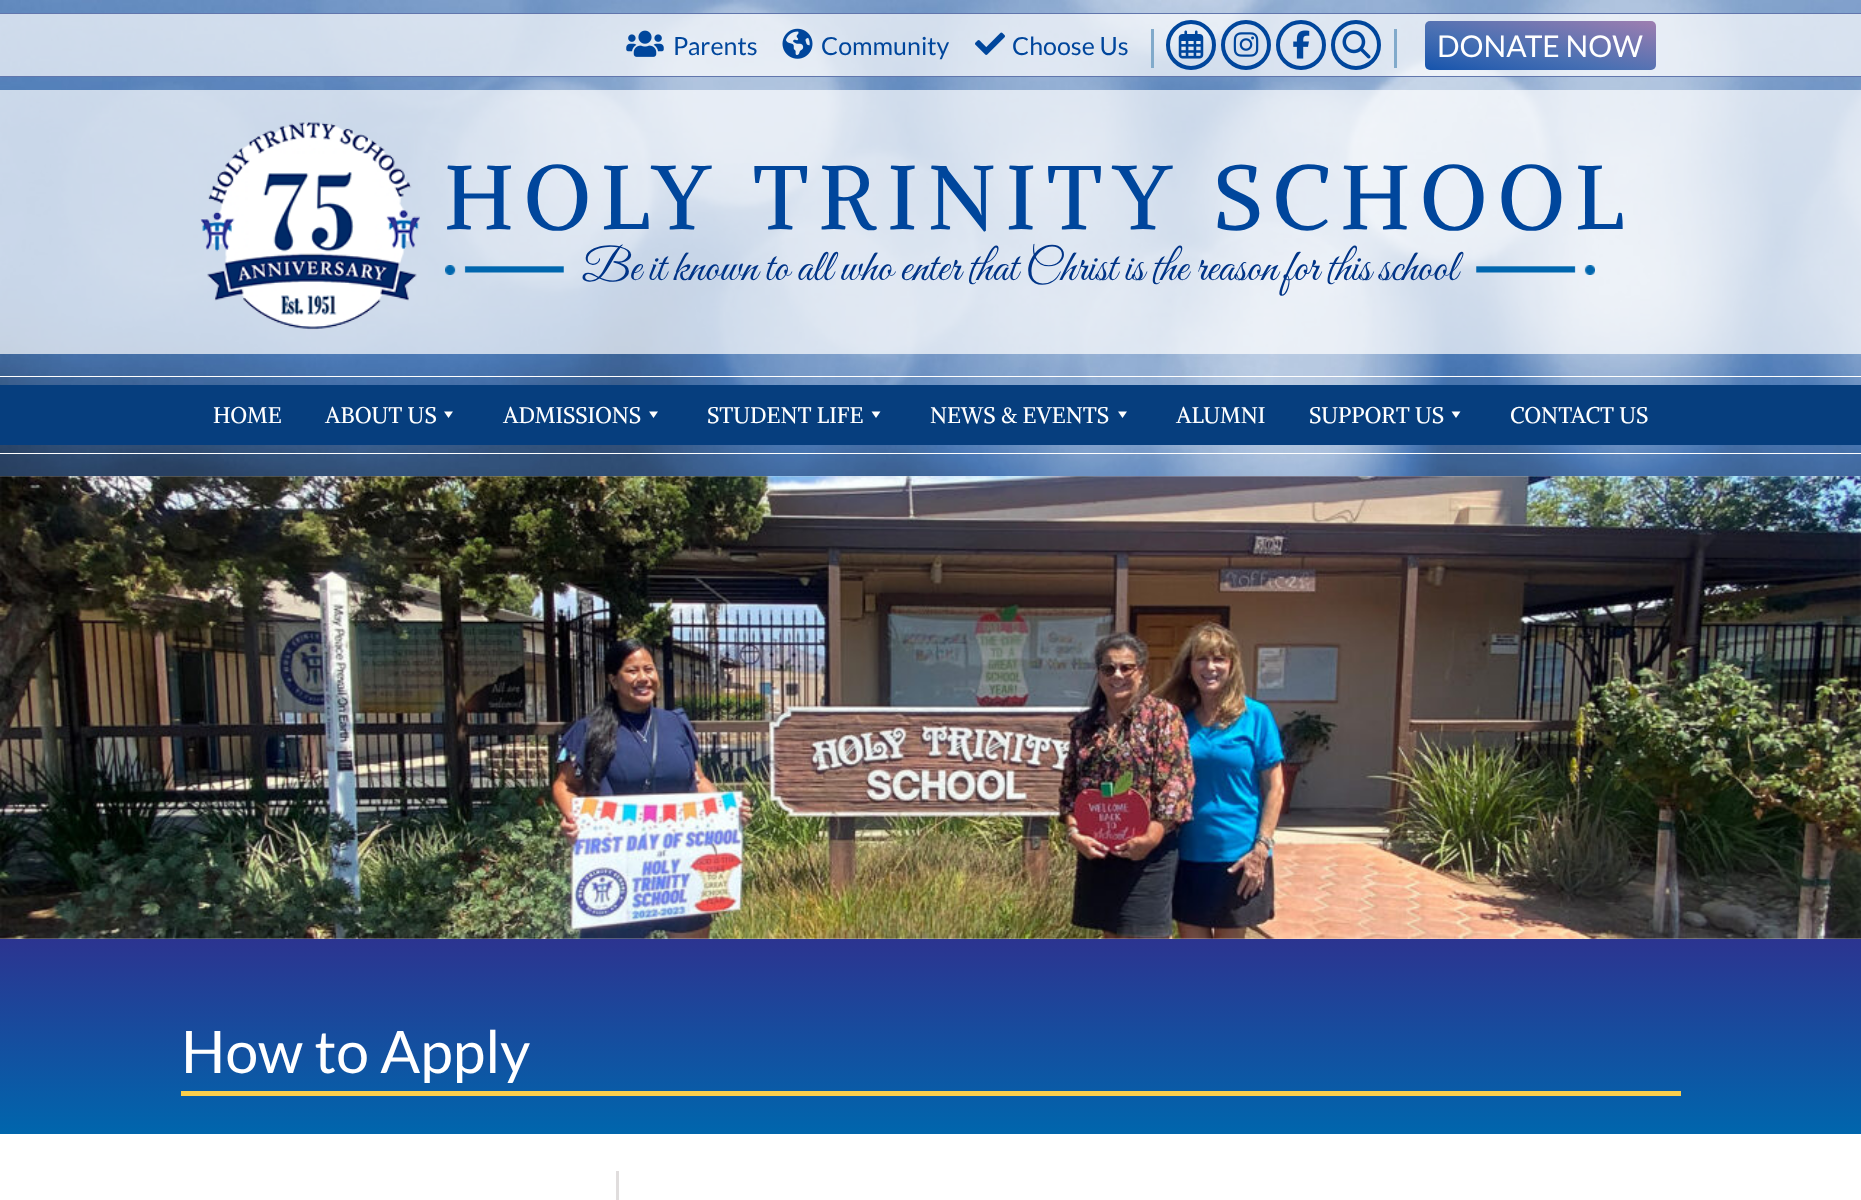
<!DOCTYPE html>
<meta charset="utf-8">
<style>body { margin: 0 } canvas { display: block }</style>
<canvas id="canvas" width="1861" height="1200"></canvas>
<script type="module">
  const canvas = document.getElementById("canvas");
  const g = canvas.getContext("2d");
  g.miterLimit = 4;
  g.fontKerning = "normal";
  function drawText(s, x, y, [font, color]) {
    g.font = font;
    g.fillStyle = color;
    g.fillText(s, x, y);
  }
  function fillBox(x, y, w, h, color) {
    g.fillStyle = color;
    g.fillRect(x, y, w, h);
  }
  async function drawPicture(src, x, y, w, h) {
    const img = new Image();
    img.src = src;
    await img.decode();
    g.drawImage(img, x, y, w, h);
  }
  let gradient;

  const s1 = ["25px Lato", "#00469C"];
  const s2 = ["30px Lato", "#FFFFFF"];
  const s3 = ["90px Alike", "#00469C"];
  const s4 = ["45px Great Vibes", "#003487"];
  const s5 = ["22.5px Alike", "#FFFFFF"];
  const s6 = ["58.75px Lato", "#FFFFFF"];

  fillBox(0, 0, 1861, 1200, "#FFFFFF");
  await drawPicture("pic1.png", 0, 0, 1861, 477);
  fillBox(0, 14, 1861, 62, "rgba(255, 255, 255, 0.7)");
  fillBox(0, 13, 1861, 1, "#6176AD");
  fillBox(0, 76, 1861, 1, "#6176AD");
  await drawPicture("pic2.png", 626, 30, 38, 27);
  drawText("Parents", 673, 55, s1);
  await drawPicture("pic3.png", 782, 28, 31, 31);
  drawText("Community", 821, 55, s1);
  await drawPicture("pic4.png", 975, 32, 30, 23);
  drawText("Choose Us", 1012, 55, s1);
  fillBox(1151, 29, 3, 39, "#81AACB");
  g.beginPath();
  g.arc(1191, 45, 23, 0, Math.PI * 2);
  g.strokeStyle = "#00469C";
  g.lineWidth = 4;
  g.stroke();
  await drawPicture("pic5.png", 1178, 30, 26, 29);
  g.beginPath();
  g.arc(1246, 45, 23, 0, Math.PI * 2);
  g.stroke();
  await drawPicture("pic6.png", 1233, 32, 26, 25);
  g.beginPath();
  g.arc(1301, 45, 23, 0, Math.PI * 2);
  g.stroke();
  await drawPicture("pic7.png", 1293, 30, 17, 29);
  g.beginPath();
  g.arc(1356, 45, 23, 0, Math.PI * 2);
  g.stroke();
  await drawPicture("pic8.png", 1342, 30, 29, 29);
  fillBox(1394, 29, 3, 39, "#81AACB");
  gradient = g.createLinearGradient(1531, 92, 1551, -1.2);
  gradient.addColorStop(0, "#1654AC");
  gradient.addColorStop(0.19, "#3062B0");
  gradient.addColorStop(0.41, "#4970B3");
  gradient.addColorStop(1, "#9E7EB0");
  g.fillStyle = gradient;
  g.beginPath();
  g.roundRect(1425, 21, 231, 49, 5);
  g.fill();
  drawText("DONATE NOW", 1437, 57, s2);
  fillBox(0, 90, 1861, 264, "rgba(255, 255, 255, 0.7)");
  await drawPicture("pic9.png", 200, 122, 220, 208);
  g.letterSpacing = "10px";
  drawText("HOLY TRINITY SCHOOL", 444, 229, s3);
  await drawPicture("pic10.png", 445, 265, 119, 10);
  g.letterSpacing = "0px";
  drawText("Be it known to all who enter that Christ is the reason for this school", 582, 280, s4);
  await drawPicture("pic11.png", 1476, 265, 119, 10);
  fillBox(0, 385, 1861, 60, "#063E7E");
  fillBox(0, 376, 1861, 1, "#FFFFFF");
  drawText("HOME", 213, 423, s5);
  drawText("ABOUT US", 325, 423, s5);
  g.beginPath();
  g.moveTo(453, 411.5);
  g.lineTo(448.5, 418);
  g.lineTo(444, 411.5);
  g.closePath();
  g.fill();
  drawText("ADMISSIONS", 503, 423, s5);
  g.beginPath();
  g.moveTo(658, 411.5);
  g.lineTo(653.5, 418);
  g.lineTo(649, 411.5);
  g.closePath();
  g.fill();
  drawText("STUDENT LIFE", 707, 423, s5);
  g.beginPath();
  g.moveTo(880.5, 411.5);
  g.lineTo(876, 418);
  g.lineTo(871.5, 411.5);
  g.closePath();
  g.fill();
  drawText("NEWS & EVENTS", 930, 423, s5);
  g.beginPath();
  g.moveTo(1127, 411.5);
  g.lineTo(1122.5, 418);
  g.lineTo(1118, 411.5);
  g.closePath();
  g.fill();
  drawText("ALUMNI", 1176, 423, s5);
  drawText("SUPPORT US", 1309, 423, s5);
  g.beginPath();
  g.moveTo(1460.5, 411.5);
  g.lineTo(1456, 418);
  g.lineTo(1451.5, 411.5);
  g.closePath();
  g.fill();
  drawText("CONTACT US", 1510, 423, s5);
  fillBox(0, 453, 1861, 1, "#FFFFFF");
  await drawPicture("pic12.png", 0, 476, 1861, 463);
  gradient = g.createLinearGradient(931, 1134, 931, 939);
  gradient.addColorStop(0, "#0066AD");
  gradient.addColorStop(1, "#2C3490");
  g.fillStyle = gradient;
  g.fillRect(0, 939, 1861, 195);
  drawText("How to Apply", 181, 1073, s6);
  fillBox(181, 1091, 1500, 5, "#FBCE4B");
  fillBox(616, 1171, 3, 29, "#E0DDDD");
</script>
